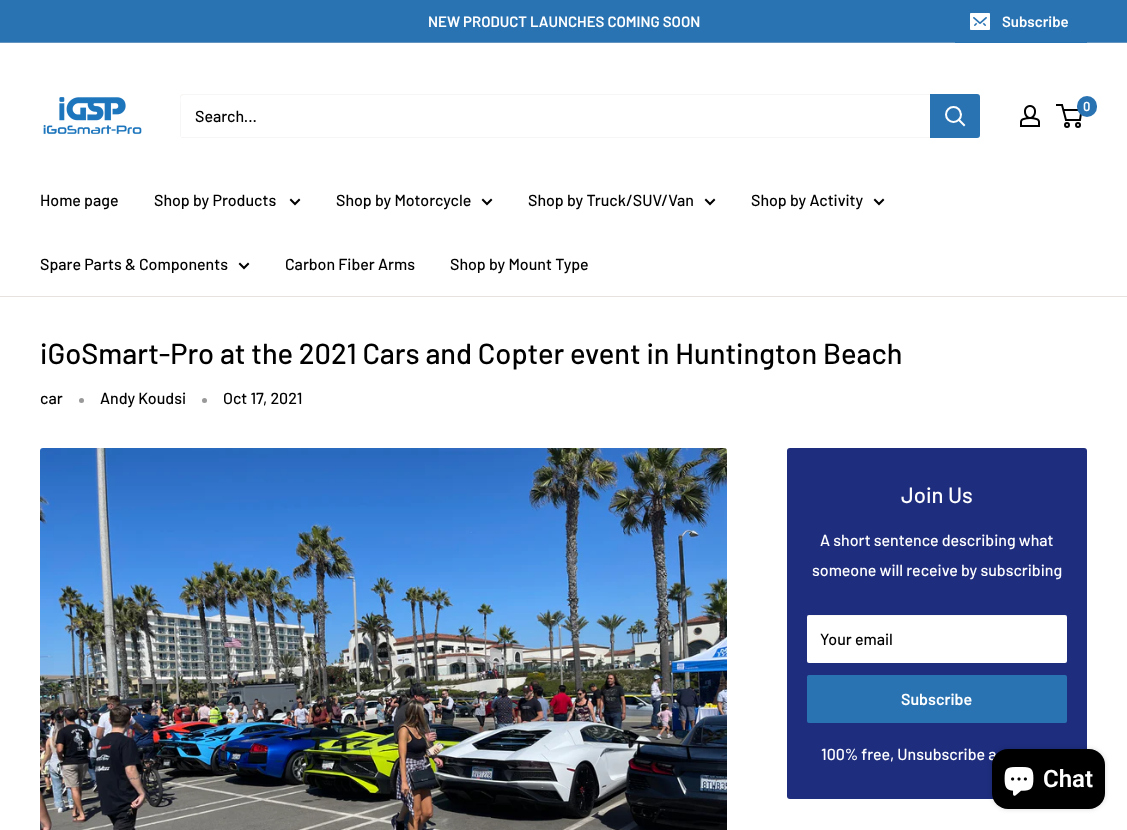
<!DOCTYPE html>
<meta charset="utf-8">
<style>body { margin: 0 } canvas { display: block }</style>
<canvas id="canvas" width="1127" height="830"></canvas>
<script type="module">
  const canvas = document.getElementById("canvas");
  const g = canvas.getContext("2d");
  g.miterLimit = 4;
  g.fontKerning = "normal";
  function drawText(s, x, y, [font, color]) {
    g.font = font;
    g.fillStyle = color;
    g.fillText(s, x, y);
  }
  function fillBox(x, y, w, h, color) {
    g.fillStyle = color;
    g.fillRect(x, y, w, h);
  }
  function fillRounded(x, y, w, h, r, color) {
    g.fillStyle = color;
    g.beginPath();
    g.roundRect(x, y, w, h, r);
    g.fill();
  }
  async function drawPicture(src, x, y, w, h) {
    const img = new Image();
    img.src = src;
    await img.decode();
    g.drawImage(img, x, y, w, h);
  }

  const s1 = ["600 15px Barlow", "#FFFFFF"];
  const s2 = ["600 13px Barlow", "#FFFFFF"];
  const s3 = ["500 16px Barlow", "#000000"];
  const s4 = ["500 29px Barlow", "#000000"];
  const s5 = ["500 22px Barlow", "#FFFFFF"];
  const s6 = ["500 16px Barlow", "#FFFFFF"];
  const s7 = ["600 16px Barlow", "#FFFFFF"];
  const s8 = ["600 24px Roboto", "#FFFFFF"];

  fillBox(0, 0, 1127, 830, "#FFFFFF");
  fillBox(0, 0, 1127, 42, "#2973B3");
  fillBox(0, 42, 1127, 1, "#6394C0");
  drawText("NEW PRODUCT LAUNCHES COMING SOON", 428, 27, s1);
  fillBox(955, 42, 132, 1, "#2973B3");
  await drawPicture("pic1.png", 970, 13, 20, 17);
  drawText("Subscribe", 1002, 27, s1);
  await drawPicture("pic2.png", 43, 97, 99, 37);
  await drawPicture("pic3.png", 1020, 105, 20, 22);
  g.beginPath();
  g.arc(1067, 125, 2, 0, Math.PI * 2);
  g.strokeStyle = "#000000";
  g.lineWidth = 2;
  g.stroke();
  g.beginPath();
  g.arc(1078, 125, 2, 0, Math.PI * 2);
  g.stroke();
  g.beginPath();
  g.moveTo(1063.5, 110);
  g.lineTo(1081.5, 110);
  g.lineTo(1080, 120);
  g.lineTo(1066, 120);
  g.lineTo(1062, 105);
  g.lineTo(1056, 105);
  g.stroke();
  fillRounded(1077, 96, 20, 21, 10, "#2973B3");
  drawText("0", 1083, 111, s2);
  g.fillStyle = "#F8F6F5";
  g.beginPath();
  g.moveTo(181, 137);
  g.bezierCurveTo(181, 138, 182, 138, 183, 138);
  g.lineTo(977, 138);
  g.bezierCurveTo(979, 138, 980, 137, 980, 135);
  g.lineTo(980, 97);
  g.bezierCurveTo(980, 96, 980, 95, 979, 95);
  g.lineTo(979, 128);
  g.bezierCurveTo(979, 130, 981, 137, 976, 137);
  g.closePath();
  g.fill();
  g.beginPath();
  g.moveTo(184, 95);
  g.lineTo(979, 95);
  g.bezierCurveTo(979, 94, 978, 94, 977, 94);
  g.lineTo(183, 94);
  g.bezierCurveTo(181, 94, 180, 95, 180, 97);
  g.lineTo(180, 135);
  g.bezierCurveTo(180, 136, 180, 137, 181, 137);
  g.lineTo(181, 104);
  g.bezierCurveTo(181, 102, 179, 95, 184, 95);
  g.closePath();
  g.fill();
  drawText("Search...", 195, 122, s3);
  g.fillStyle = "#2973B3";
  g.beginPath();
  g.roundRect(930, 94, 50, 44, [0, 3, 3, 0]);
  g.fill();
  g.beginPath();
  g.moveTo(964, 125);
  g.lineTo(959, 120);
  g.strokeStyle = "#FFFFFF";
  g.lineCap = "square";
  g.stroke();
  g.beginPath();
  g.arc(953.5, 114.5, 7.5, 0, Math.PI * 2);
  g.stroke();
  fillBox(0, 296, 1127, 1, "#E7E2DE");
  drawText("Home page", 40, 206, s3);
  drawText("Shop by Products", 154, 206, s3);
  g.beginPath();
  g.moveTo(299, 200);
  g.lineTo(295, 204);
  g.lineTo(291, 200);
  g.strokeStyle = "#000000";
  g.stroke();
  drawText("Shop by Motorcycle", 336, 206, s3);
  g.beginPath();
  g.moveTo(491, 200);
  g.lineTo(487, 204);
  g.lineTo(483, 200);
  g.stroke();
  drawText("Shop by Truck/SUV/Van", 528, 206, s3);
  g.beginPath();
  g.moveTo(714, 200);
  g.lineTo(710, 204);
  g.lineTo(706, 200);
  g.stroke();
  drawText("Shop by Activity", 751, 206, s3);
  g.beginPath();
  g.moveTo(883, 200);
  g.lineTo(879, 204);
  g.lineTo(875, 200);
  g.stroke();
  drawText("Spare Parts & Components", 40, 270, s3);
  g.beginPath();
  g.moveTo(248, 264);
  g.lineTo(244, 268);
  g.lineTo(240, 264);
  g.stroke();
  drawText("Carbon Fiber Arms", 285, 270, s3);
  drawText("Shop by Mount Type", 450, 270, s3);
  drawText("iGoSmart-Pro at the 2021 Cars and Copter event in Huntington Beach", 40, 364, s4);
  drawText("car", 40, 404, s3);
  g.fillStyle = "#999999";
  g.beginPath();
  g.arc(81.5, 400.5, 2.5, 0, Math.PI * 2);
  g.fill();
  drawText("Andy Koudsi", 100, 404, s3);
  g.fillStyle = "#999999";
  g.beginPath();
  g.arc(204.5, 400.5, 2.5, 0, Math.PI * 2);
  g.fill();
  drawText("Oct 17, 2021", 223, 404, s3);
  await drawPicture("pic4.png", 40, 448, 687, 382);
  fillRounded(787, 448, 300, 351, 3, "#1E2D7D");
  drawText("Join Us", 901, 503, s5);
  drawText("A short sentence describing what", 820, 546, s6);
  drawText("someone will receive by subscribing", 812, 576, s6);
  fillRounded(807, 615, 260, 48, 2, "#FFFFFF");
  g.fillStyle = "rgba(231, 226, 222, 0.25)";
  g.beginPath();
  g.moveTo(809, 616);
  g.lineTo(1065, 616);
  g.bezierCurveTo(1066, 616, 1067, 617, 1067, 618);
  g.lineTo(1067, 617);
  g.bezierCurveTo(1067, 616, 1066, 615, 1065, 615);
  g.lineTo(809, 615);
  g.bezierCurveTo(808, 615, 807, 616, 807, 617);
  g.lineTo(807, 618);
  g.bezierCurveTo(807, 617, 808, 616, 809, 616);
  g.closePath();
  g.fill();
  drawText("Your email", 820, 645, s3);
  fillRounded(807, 675, 260, 48, 2, "#2973B3");
  drawText("Subscribe", 901, 705, s7);
  drawText("100% free, Unsubscribe a", 821, 760, s6);
  g.fillStyle = "rgba(0, 0, 0, 0.15)";
  g.filter = "blur(2.5px)";
  g.beginPath();
  g.roundRect(992, 749, 113, 60, 16);
  g.fill();
  g.filter = "none";
  fillRounded(992, 749, 113, 60, 16, "#000000");
  await drawPicture("pic5.png", 1004, 767, 30, 29);
  drawText("Chat", 1043, 787, s8);
</script>
